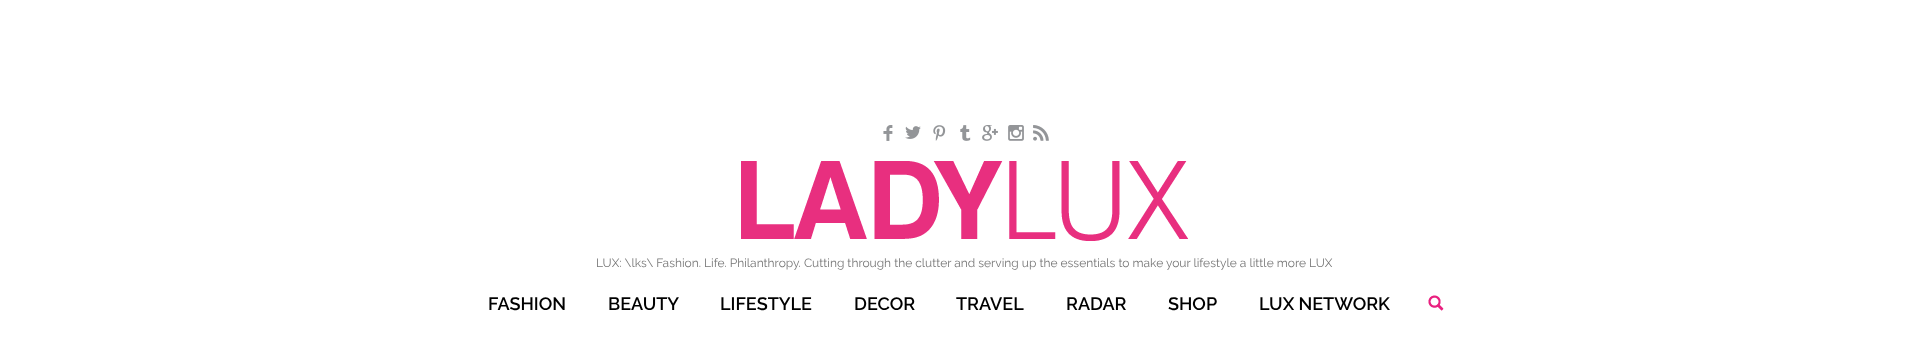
<!DOCTYPE html>
<meta charset="utf-8">
<style>body { margin: 0 } canvas { display: block }</style>
<canvas id="canvas" width="1929" height="360"></canvas>
<script type="module">
  const canvas = document.getElementById("canvas");
  const g = canvas.getContext("2d");
  g.miterLimit = 4;
  g.fontKerning = "normal";
  function drawText(s, x, y, [font, color]) {
    g.font = font;
    g.fillStyle = color;
    g.fillText(s, x, y);
  }
  function fillBox(x, y, w, h, color) {
    g.fillStyle = color;
    g.fillRect(x, y, w, h);
  }
  async function drawPicture(src, x, y, w, h) {
    const img = new Image();
    img.src = src;
    await img.decode();
    g.drawImage(img, x, y, w, h);
  }

  const s1 = ["12px Raleway", "#777777"];
  const s2 = ["600 18px Raleway", "#000000"];

  fillBox(0, 0, 1929, 360, "#FFFFFF");
  await drawPicture("pic1.png", 883, 125, 10, 16);
  await drawPicture("pic2.png", 905, 126, 16, 13);
  await drawPicture("pic3.png", 933, 125, 13, 16);
  await drawPicture("pic4.png", 960, 125, 11, 16);
  await drawPicture("pic5.png", 982, 125, 16, 16);
  await drawPicture("pic6.png", 1008, 125, 16, 16);
  await drawPicture("pic7.png", 1033, 125, 16, 16);
  await drawPicture("pic8.png", 741, 161, 447, 80);
  drawText("LUX: \\lks\\ Fashion. Life. Philanthropy. Cutting through the clutter and serving up the essentials to make your lifestyle a little more LUX", 596, 267, s1);
  drawText("FASHION", 488, 310, s2);
  drawText("BEAUTY", 608, 310, s2);
  drawText("LIFESTYLE", 720, 310, s2);
  drawText("DECOR", 854, 310, s2);
  drawText("TRAVEL", 956, 310, s2);
  drawText("RADAR", 1066, 310, s2);
  drawText("SHOP", 1168, 310, s2);
  drawText("LUX NETWORK", 1259, 310, s2);
  await drawPicture("pic9.png", 1428, 295, 16, 16);
</script>
